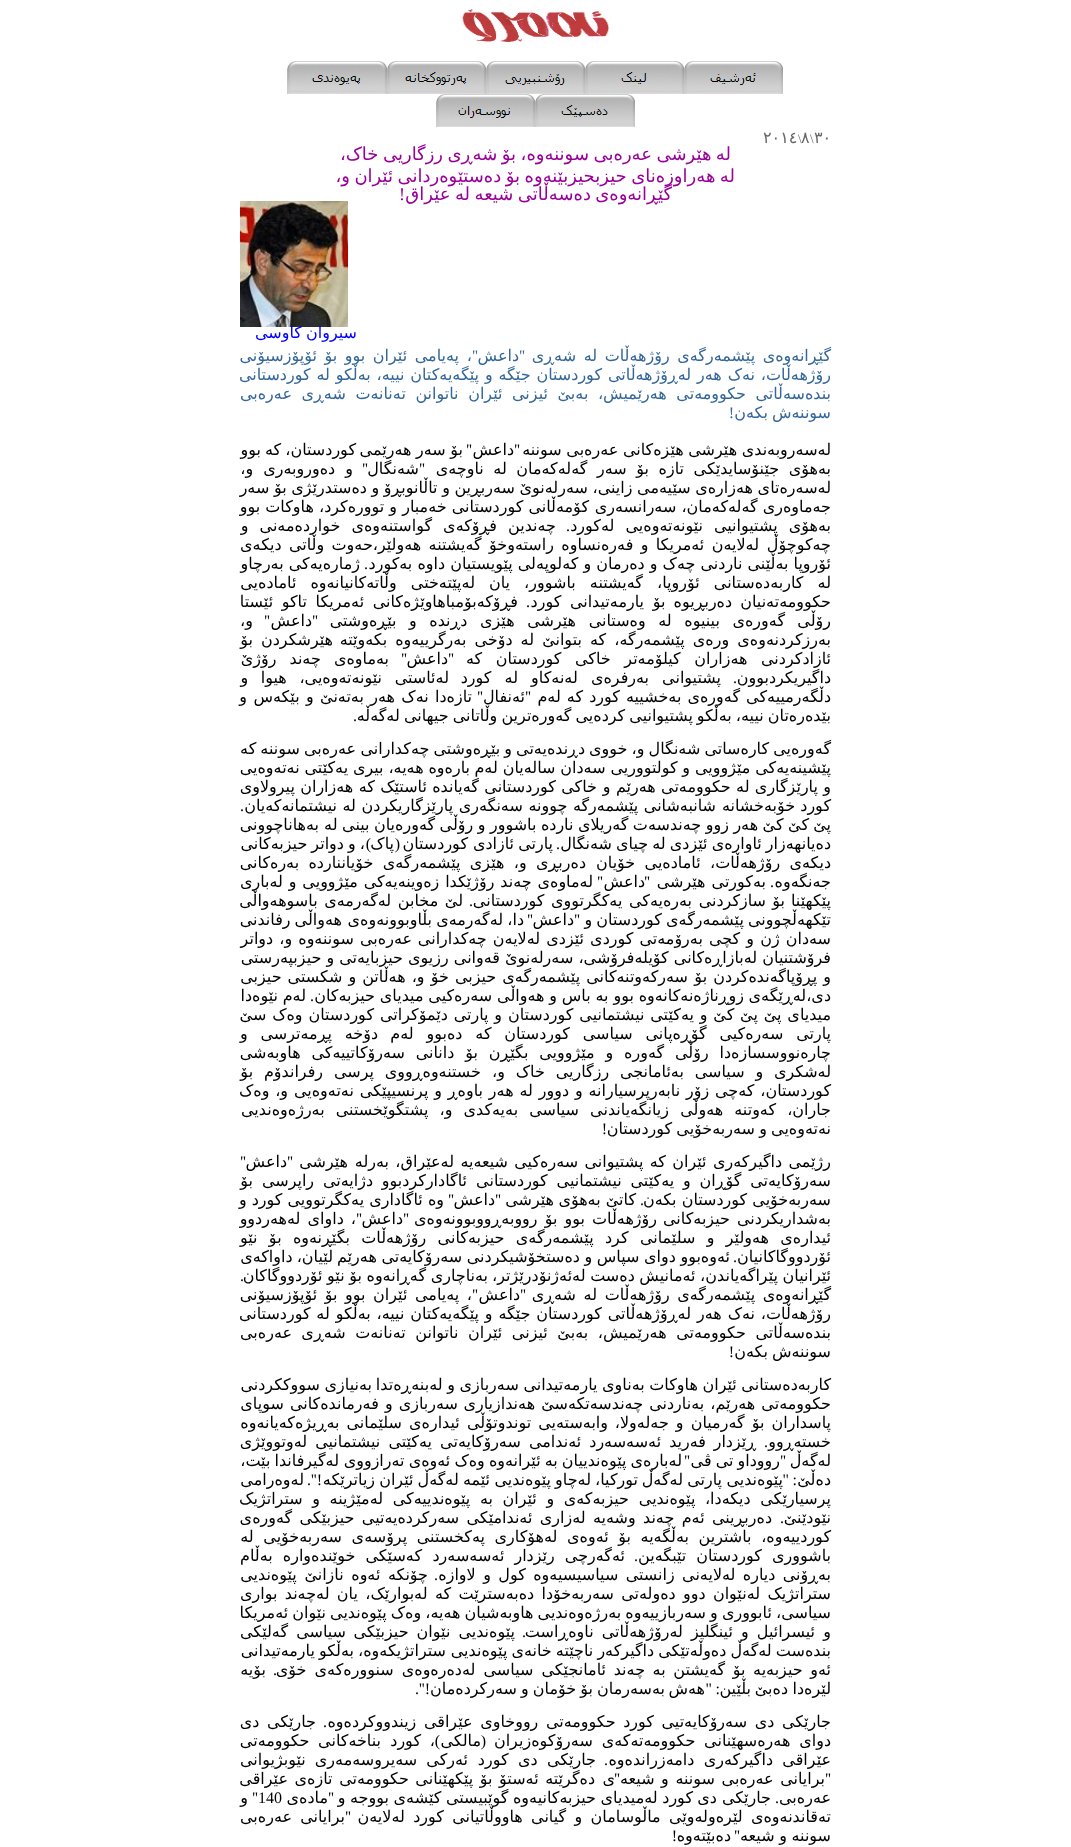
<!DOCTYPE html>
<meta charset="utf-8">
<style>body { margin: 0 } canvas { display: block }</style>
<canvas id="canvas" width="1071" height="1847"></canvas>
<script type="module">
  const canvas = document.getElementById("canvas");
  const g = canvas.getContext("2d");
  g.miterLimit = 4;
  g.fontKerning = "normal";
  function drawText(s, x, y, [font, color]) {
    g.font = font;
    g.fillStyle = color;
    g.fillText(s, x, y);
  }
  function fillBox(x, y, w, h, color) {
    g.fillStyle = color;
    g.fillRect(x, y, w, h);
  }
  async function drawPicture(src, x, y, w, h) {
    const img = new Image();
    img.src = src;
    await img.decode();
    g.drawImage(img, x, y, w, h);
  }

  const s1 = ["16px DejaVu Sans", "#666666"];
  const s2 = ["13px Liberation Serif", "#666666"];
  const s3 = ["18px DejaVu Sans", "#990099"];
  const s4 = ["18px Liberation Serif", "#990099"];
  const s5 = ["16px DejaVu Sans", "#0000FF"];
  const s6 = ["16px DejaVu Sans", "#336699"];
  const s7 = ["16px Liberation Serif", "#336699"];
  const s8 = ["16px DejaVu Sans", "#000000"];
  const s9 = ["16px Liberation Serif", "#000000"];

  fillBox(0, 0, 1071, 1847, "#FFFFFF");
  await drawPicture("pic1.png", 462, 9, 148, 33);
  await drawPicture("pic2.png", 684, 61, 99, 33);
  await drawPicture("pic3.png", 585, 61, 99, 33);
  await drawPicture("pic4.png", 486, 61, 99, 33);
  await drawPicture("pic5.png", 387, 61, 99, 33);
  await drawPicture("pic6.png", 287, 61, 100, 33);
  await drawPicture("pic7.png", 535, 94, 100, 33);
  await drawPicture("pic8.png", 436, 94, 99, 33);
  drawText("٣٠", 814, 143, s1);
  drawText("\\", 810, 143, s2);
  drawText("٨", 801, 143, s1);
  drawText("\\", 798, 143, s2);
  drawText("٢٠١٤", 763, 143, s1);
  g.wordSpacing = "-1.25px";
  g.direction = "rtl";
  drawText("لە هێرشی عەرەبی", 731, 160, s3);
  drawText("سوننەوە، بۆ شەڕی رزگاریی خاک،", 589, 160, s3);
  drawText("لە هەراوزەنای حیزبحیزبێنەوە بۆ دەستێوەردانی ئێران و،", 735, 182, s3);
  g.wordSpacing = "0px";
  drawText("گێڕانەوەی", 672, 200, s3);
  g.wordSpacing = "-1.25px";
  drawText("دەسەڵاتی شیعە لە عێراق", 591, 200, s3);
  g.wordSpacing = "0px";
  drawText("!", 405, 200, s4);
  await drawPicture("pic9.png", 240, 201, 108, 126);
  g.wordSpacing = "-1px";
  drawText("سیروان کاوسی", 357, 338, s5);
  g.wordSpacing = "2.5px";
  drawText("گێڕانەوەی پێشمەرگەی رۆژهەڵات لە شەڕی", 831, 361, s6);
  g.wordSpacing = "0px";
  drawText("''", 525, 361, s7);
  drawText("داعش", 519, 361, s6);
  drawText("''", 478, 361, s7);
  g.wordSpacing = "2.5px";
  drawText("پەیامی ئێران بوو بۆ ئۆپۆزسیۆنی", 459, 361, s6);
  g.wordSpacing = "0px";
  drawText("،", 472, 361, s6);
  g.wordSpacing = "0.75px";
  drawText("رۆژهەڵات، نەک هەر لەڕۆژهەڵاتی", 831, 380, s6);
  drawText("کوردستان جێگە و پێگەیەکتان نییە، بەڵکو لە کوردستانی", 602, 380, s6);
  g.wordSpacing = "0px";
  drawText("بندەسەڵاتی", 831, 399, s6);
  g.wordSpacing = "4.5px";
  drawText("حکوومەتی هەرێمیش، بەبێ ئیزنی ئێران ناتوانن تەنانەت شەڕی عەرەبی", 746, 399, s6);
  g.wordSpacing = "-1px";
  drawText("سوننەش بکەن", 831, 418, s6);
  g.wordSpacing = "0px";
  drawText("!", 734, 418, s7);
  g.wordSpacing = "-0.5px";
  drawText("لەسەروبەندی هێرشی هێزەکانی عەرەبی سوننە", 831, 455, s8);
  g.wordSpacing = "0px";
  drawText("''", 520, 455, s9);
  drawText("داعش", 514, 455, s8);
  drawText("''", 472, 455, s9);
  g.wordSpacing = "-0.5px";
  drawText("بۆ سەر هەرێمی", 463, 455, s8);
  g.wordSpacing = "-1px";
  drawText("کوردستان، کە بوو", 356, 455, s8);
  g.wordSpacing = "4.5px";
  drawText("بەهۆی جێنۆسایدێکی تازە بۆ سەر گەلەکەمان لە ناوچەی", 831, 474, s8);
  g.wordSpacing = "0px";
  drawText("''", 425, 474, s9);
  drawText("شەنگال", 419, 474, s8);
  drawText("''", 368, 474, s9);
  g.wordSpacing = "5px";
  drawText("و دەوروبەری و،", 353, 474, s8);
  g.wordSpacing = "-0.5px";
  drawText("لەسەرەتای هەزارەی سێیەمی زاینی، سەرلەنوێ", 831, 493, s8);
  drawText("سەربڕین و تاڵانوبڕۆ و دەستدرێژی بۆ سەر", 515, 493, s8);
  g.wordSpacing = "0px";
  drawText("جەماوەری گەلەکەمان، سەرانسەری", 831, 512, s8);
  drawText("کۆمەڵانی کوردستانی خەمبار و توورەکرد، هاوکات بوو", 589, 512, s8);
  g.wordSpacing = "6px";
  drawText("بەهۆی پشتیوانیی", 831, 531, s8);
  drawText("نێونەتەوەیی لەکورد", 703, 531, s8);
  g.wordSpacing = "0px";
  drawText(".", 570, 531, s9);
  g.wordSpacing = "6px";
  drawText("چەندین فڕۆکەی گواستنەوەی خواردەمەنی و", 556, 531, s8);
  g.wordSpacing = "0px";
  drawText("چەکوچۆڵ", 831, 550, s8);
  g.wordSpacing = "2.25px";
  drawText("لەلایەن ئەمریکا و فەرەنساوە راستەوخۆ گەیشتنە هەولێر،حەوت وڵاتی دیکەی", 759, 550, s8);
  g.wordSpacing = "0px";
  drawText("ئۆروپا بەڵێنی ناردنی چەک و دەرمان و کەلوپەلی پێویستیان داوە بەکورد", 831, 569, s8);
  drawText(".", 368, 569, s9);
  drawText("ژمارەیەکی بەرچاو", 360, 569, s8);
  g.wordSpacing = "9px";
  drawText("لە کاربەدەستانی ئۆروپا، گەیشتنە باشوور، یان", 831, 588, s8);
  drawText("لەپێتەختی وڵاتەکانیانەوە ئامادەیی", 475, 588, s8);
  g.wordSpacing = "3px";
  drawText("حکوومەتەنیان دەربڕیوە بۆ", 831, 607, s8);
  g.wordSpacing = "3.5px";
  drawText("یارمەتیدانی کورد", 644, 607, s8);
  g.wordSpacing = "0px";
  drawText(".", 530, 607, s9);
  g.wordSpacing = "3.5px";
  drawText("فڕۆکەبۆمباهاوێژەکانی ئەمریکا تاکو ئێستا", 518, 607, s8);
  g.wordSpacing = "0px";
  drawText("رۆڵی", 831, 626, s8);
  g.wordSpacing = "7.5px";
  drawText("گەورەی بینیوە لە وەستانی هێرشی هێزی دڕندە و بێڕەوشتی", 785, 626, s8);
  g.wordSpacing = "0px";
  drawText("''", 318, 626, s9);
  drawText("داعش", 312, 626, s8);
  drawText("''", 270, 626, s9);
  drawText("و،", 253, 626, s8);
  g.wordSpacing = "3px";
  drawText("بەرزکردنەوەی ورەی پێشمەرگە، کە بتوانێ لە دۆخی بەرگرییەوە بکەوێتە", 831, 645, s8);
  drawText("هێرشکردن بۆ", 333, 645, s8);
  g.wordSpacing = "8.5px";
  drawText("ئازادکردنی هەزاران کیلۆمەتر خاکی کوردستان کە", 831, 664, s8);
  g.wordSpacing = "0px";
  drawText("''", 454, 664, s9);
  drawText("داعش", 448, 664, s8);
  drawText("''", 407, 664, s9);
  g.wordSpacing = "8px";
  drawText("بەماوەی چەند رۆژێ", 389, 664, s8);
  g.wordSpacing = "0px";
  drawText("داگیریکردبوون", 831, 683, s8);
  drawText(".", 737, 683, s9);
  g.wordSpacing = "8px";
  drawText("پشتیوانی بەرفرەی لەنەکاو لە کورد", 721, 683, s8);
  g.wordSpacing = "7.5px";
  drawText("لەئاستی نێونەتەوەیی، هیوا و", 449, 683, s8);
  g.wordSpacing = "1px";
  drawText("دڵگەرمییەکی گەورەی بەخشییە کورد کە لەم", 831, 702, s8);
  g.wordSpacing = "0px";
  drawText("''", 531, 702, s9);
  drawText("ئەنفال", 525, 702, s8);
  drawText("''", 483, 702, s9);
  g.wordSpacing = "1.25px";
  drawText("تازەدا نەک هەر بەتەنێ و بێکەس و", 472, 702, s8);
  g.wordSpacing = "-1px";
  drawText("بێدەرەتان نییە، بەڵکو", 831, 721, s8);
  drawText("پشتیوانیی کردەیی گەورەترین وڵاتانی جیهانی لەگەڵە", 693, 721, s8);
  g.wordSpacing = "0px";
  drawText(".", 357, 721, s9);
  g.wordSpacing = "-1px";
  drawText("گەورەیی کارەساتی شەنگال و، خووی دڕندەیەتی و بێڕەوشتی چەکدارانی", 831, 754, s8);
  drawText("عەرەبی سوننە کە", 356, 754, s8);
  g.wordSpacing = "-0.25px";
  drawText("پێشینەیەکی مێژوویی و کولتووریی سەدان سالەیان لەم", 831, 773, s8);
  drawText("بارەوە هەیە، بیری یەکێتی نەتەوەیی", 470, 773, s8);
  g.wordSpacing = "0.25px";
  drawText("و پارێزگاری لە حکوومەتی هەرێم و", 831, 792, s8);
  drawText("خاکی کوردستانی گەیاندە ئاستێک کە هەزاران پیرولاوی", 597, 792, s8);
  g.wordSpacing = "0px";
  drawText("کورد خۆبەخشانە", 831, 811, s8);
  g.wordSpacing = "0.5px";
  drawText("شانبەشانی پێشمەرگە چوونە سەنگەری پارێزگاریکردن لە نیشتمانەکەیان", 716, 811, s8);
  g.wordSpacing = "0px";
  drawText(".", 244, 811, s9);
  drawText("پێ", 831, 830, s8);
  g.wordSpacing = "-0.6px";
  drawText("کێ کێ هەر زوو چەندسەت گەریلای ناردە باشوور و رۆڵی گەورەیان بینی لە", 809, 830, s8);
  g.wordSpacing = "0px";
  drawText("بەهاناچوونی", 319, 830, s8);
  g.wordSpacing = "-1px";
  drawText("دەیانهەزار ئاوارەی ئێزدی لە چیای شەنگال", 831, 849, s8);
  g.wordSpacing = "0px";
  drawText(".", 560, 849, s9);
  g.wordSpacing = "-1px";
  drawText("پارتی ئازادی", 553, 849, s8);
  g.wordSpacing = "0px";
  drawText("کوردستان", 468, 849, s8);
  drawText("(", 400, 849, s9);
  drawText("پاک", 394, 849, s8);
  drawText(")", 371, 849, s9);
  g.wordSpacing = "-1px";
  drawText("، و دواتر حیزبەکانی", 365, 849, s8);
  g.wordSpacing = "4.25px";
  drawText("دیکەی رۆژهەڵات، ئامادەیی خۆیان", 831, 868, s8);
  drawText("دەربڕی و، هێزی پێشمەرگەی خۆیانناردە بەرەکانی", 586, 868, s8);
  g.wordSpacing = "0px";
  drawText("جەنگەوە", 831, 887, s8);
  g.wordSpacing = "1px";
  drawText("بەکورتی هێرشی", 766, 887, s8);
  g.wordSpacing = "0px";
  drawText("''", 650, 887, s9);
  drawText("داعش", 645, 887, s8);
  drawText("''", 603, 887, s9);
  g.wordSpacing = "0.75px";
  drawText("لەماوەی چەند رۆژێکدا زەوینەیەکی مێژوویی و لەباری", 593, 887, s8);
  g.wordSpacing = "0px";
  drawText(".", 774, 887, s9);
  g.wordSpacing = "1px";
  drawText("پێکهێنا بۆ", 831, 906, s8);
  g.wordSpacing = "1.5px";
  drawText("سازکردنی بەرەیەکی یەکگرتووی کوردستانی", 766, 906, s8);
  g.wordSpacing = "0px";
  drawText(".", 473, 906, s9);
  g.wordSpacing = "1.5px";
  drawText("لێ مخابن لەگەرمەی باسوهەواڵی", 463, 906, s8);
  g.wordSpacing = "-1px";
  drawText("تێکهەڵچوونی پێشمەرگەی کوردستان و", 831, 925, s8);
  g.wordSpacing = "0px";
  drawText("''", 580, 925, s9);
  drawText("داعش", 574, 925, s8);
  drawText("''", 533, 925, s9);
  g.wordSpacing = "-1px";
  drawText("دا، لەگەرمەی بڵاوبوونەوەی", 524, 925, s8);
  drawText("هەواڵی رفاندنی", 342, 925, s8);
  g.wordSpacing = "1px";
  drawText("سەدان ژن و کچی بەرۆمەتی کوردی ئێزدی لەلایەن چەکدارانی", 831, 944, s8);
  drawText("عەرەبی سوننەوە و، دواتر", 412, 944, s8);
  g.wordSpacing = "0px";
  drawText("فرۆشتنیان لەبازاڕەکانی کۆیلەفرۆشی، سەرلەنوێ", 831, 963, s8);
  drawText("قەوانی رزیوی حیزبایەتی و حیزبپەرستی", 500, 963, s8);
  g.wordSpacing = "1px";
  drawText("و پڕۆپاگەندەکردن بۆ", 831, 982, s8);
  drawText("سەرکەوتنەکانی پێشمەرگەی حیزبی خۆ و، هەڵاتن و شکستی حیزبی", 688, 982, s8);
  g.wordSpacing = "0px";
  drawText("دی،لەڕێگەی", 831, 1001, s8);
  g.wordSpacing = "-0.25px";
  drawText("زوڕناژەنەکانەوە بوو بە باس و هەواڵی سەرەکیی میدیای حیزبەکان", 744, 1001, s8);
  g.wordSpacing = "0px";
  drawText(".", 314, 1001, s9);
  drawText("لەم", 306, 1001, s8);
  drawText("نێوەدا", 278, 1001, s8);
  g.wordSpacing = "0.75px";
  drawText("میدیای پێ پێ کێ و یەکێتی نیشتمانیی کوردستان و پارتی دێمۆکراتی", 831, 1020, s8);
  drawText("کوردستان وەک سێ", 374, 1020, s8);
  g.wordSpacing = "7.75px";
  drawText("پارتی سەرەکیی گۆڕەپانی سیاسی کوردستان کە دەبوو لەم", 831, 1039, s8);
  drawText("دۆخە پڕمەترسی و", 378, 1039, s8);
  g.wordSpacing = "5.75px";
  drawText("چارەنووسسازەدا رۆڵی گەورە و مێژوویی بگێڕن بۆ دانانی", 831, 1058, s8);
  drawText("سەرۆکاتییەکی هاوبەشی", 405, 1058, s8);
  drawText("لەشکری و سیاسی بەئامانجی رزگاریی خاک و،", 831, 1077, s8);
  drawText("خستنەوەڕووی پرسی رفراندۆم بۆ", 481, 1077, s8);
  g.wordSpacing = "0.75px";
  drawText("کوردستان، کەچی زۆر نابەرپرسیارانە و", 831, 1096, s8);
  drawText("دوور لە هەر باوەڕ و پرنسیپێکی نەتەوەیی و، وەک", 569, 1096, s8);
  g.wordSpacing = "6px";
  drawText("جاران، کەوتنە هەوڵی", 831, 1115, s8);
  drawText("زیانگەیاندنی سیاسی بەیەکدی و، پشتگوێخستنی بەرژەوەندیی", 669, 1115, s8);
  g.wordSpacing = "-1px";
  drawText("نەتەوەیی و", 831, 1134, s8);
  drawText("سەربەخۆیی کوردستان", 755, 1134, s8);
  g.wordSpacing = "0px";
  drawText("!", 607, 1134, s9);
  g.wordSpacing = "1.25px";
  drawText("رژێمی داگیرکەری ئێران کە پشتیوانی سەرەکیی شیعەیە لەعێراق، بەرلە", 831, 1167, s8);
  g.wordSpacing = "0px";
  drawText("هێرشی", 348, 1167, s8);
  drawText("''", 293, 1167, s9);
  drawText("داعش", 287, 1167, s8);
  drawText("''", 246, 1167, s9);
  g.wordSpacing = "3.75px";
  drawText("سەرۆکایەتی گۆڕان و یەکێتی نیشتمانیی کوردستانی", 831, 1186, s8);
  drawText("ئاگادارکردبوو دژایەتی راپرسی بۆ", 467, 1186, s8);
  g.wordSpacing = "0px";
  drawText("سەربەخۆیی کوردستان بکەن", 831, 1205, s8);
  drawText(".", 644, 1205, s9);
  drawText("کاتێ بەهۆی", 636, 1205, s8);
  drawText("هێرشی", 554, 1205, s8);
  drawText("''", 501, 1205, s9);
  drawText("داعش", 495, 1205, s8);
  drawText("''", 454, 1205, s9);
  drawText("وە ئاگاداری یەکگرتوویی کورد و", 444, 1205, s8);
  g.wordSpacing = "2px";
  drawText("بەشداریکردنی حیزبەکانی", 831, 1224, s8);
  drawText("رۆژهەڵات بوو بۆ رووبەڕووبوونەوەی", 657, 1224, s8);
  g.wordSpacing = "0px";
  drawText("''", 409, 1224, s9);
  drawText("داعش", 403, 1224, s8);
  drawText("''", 362, 1224, s9);
  g.wordSpacing = "2px";
  drawText("، داوای لەهەردوو", 356, 1224, s8);
  g.wordSpacing = "0px";
  drawText("ئیدارەی", 831, 1243, s8);
  g.wordSpacing = "6.25px";
  drawText("هەولێر و سلێمانی کرد پێشمەرگەی حیزبەکانی رۆژهەڵات بگێڕنەوە بۆ نێو", 769, 1243, s8);
  g.wordSpacing = "0px";
  drawText("ئۆردووگاکانیان", 831, 1262, s8);
  drawText(".", 737, 1262, s9);
  g.wordSpacing = "-0.5px";
  drawText("ئەوەبوو دوای سپاس و دەستخۆشیکردنی سەرۆکایەتی هەرێم", 730, 1262, s8);
  g.wordSpacing = "-1px";
  drawText("لێیان، داواکەی", 333, 1262, s8);
  g.wordSpacing = "-0.5px";
  drawText("ئێرانیان پێراگەیاندن، ئەمانیش دەست لەئەژنۆدرێژتر،", 831, 1281, s8);
  drawText("بەناچاری گەڕانەوە بۆ نێو ئۆردووگاکان", 488, 1281, s8);
  g.wordSpacing = "0px";
  drawText(".", 244, 1281, s9);
  g.wordSpacing = "2.5px";
  drawText("گێڕانەوەی پێشمەرگەی رۆژهەڵات", 831, 1300, s8);
  drawText("لە شەڕی", 597, 1300, s8);
  g.wordSpacing = "0px";
  drawText("''", 526, 1300, s9);
  drawText("داعش", 520, 1300, s8);
  drawText("''", 478, 1300, s9);
  g.wordSpacing = "2.5px";
  drawText("، پەیامی ئێران بوو بۆ ئۆپۆزسیۆنی", 472, 1300, s8);
  g.wordSpacing = "0.75px";
  drawText("رۆژهەڵات، نەک هەر", 831, 1319, s8);
  drawText("لەڕۆژهەڵاتی کوردستان جێگە و پێگەیەکتان نییە، بەڵکو لە کوردستانی", 691, 1319, s8);
  g.wordSpacing = "4.5px";
  drawText("بندەسەڵاتی حکوومەتی هەرێمیش، بەبێ ئیزنی ئێران ناتوانن تەنانەت شەڕی", 831, 1338, s8);
  g.wordSpacing = "0px";
  drawText("عەرەبی", 292, 1338, s8);
  g.wordSpacing = "-1px";
  drawText("سوننەش بکەن", 831, 1357, s8);
  g.wordSpacing = "0px";
  drawText("!", 734, 1357, s9);
  g.wordSpacing = "-0.5px";
  drawText("کاربەدەستانی ئێران هاوکات بەناوی یارمەتیدانی سەربازی و لەبنەڕەتدا", 831, 1390, s8);
  drawText("بەنیازی سووککردنی", 372, 1390, s8);
  g.wordSpacing = "1px";
  drawText("حکوومەتی هەرێم، بەناردنی چەندسەتکەسێ هەندازیاری", 831, 1409, s8);
  drawText("سەربازی و فەرماندەکانی سوپای", 458, 1409, s8);
  g.wordSpacing = "2px";
  drawText("پاسداران بۆ گەرمیان و جەلەولا،", 831, 1428, s8);
  drawText("وابەستەیی توندوتۆڵی ئیدارەی سلێمانی بەڕیژەکەیانەوە", 608, 1428, s8);
  g.wordSpacing = "0px";
  drawText(".", 768, 1447, s9);
  drawText("خستەڕوو", 831, 1447, s8);
  drawText("ڕێزدار", 756, 1447, s8);
  g.wordSpacing = "3px";
  drawText("فەرید ئەسەسەرد ئەندامی سەرۆکایەتی یەکێتی نیشتمانیی لەوتووێژی", 706, 1447, s8);
  g.wordSpacing = "0px";
  drawText("لەگەڵ", 831, 1466, s8);
  drawText("''", 786, 1466, s9);
  g.wordSpacing = "-1px";
  drawText("رووداو تی ڤی", 780, 1466, s8);
  g.wordSpacing = "0px";
  drawText("''", 690, 1466, s9);
  g.wordSpacing = "-1px";
  drawText("لەبارەی پێوەندییان بە ئێرانەوە وەک ئەوەی تەرازووی", 682, 1466, s8);
  drawText("لەگیرفاندا بێت،", 339, 1466, s8);
  g.wordSpacing = "0px";
  drawText("دەڵێ", 831, 1485, s8);
  drawText(": ''", 797, 1485, s9);
  drawText("پێوەندیی", 783, 1485, s8);
  drawText("پارتی", 722, 1485, s8);
  drawText("لەگەڵ", 683, 1485, s8);
  drawText("تورکیا،", 638, 1485, s8);
  drawText("لەچاو", 591, 1485, s8);
  drawText("پێوەندیی", 551, 1485, s8);
  g.wordSpacing = "-1px";
  drawText("ئێمە لەگەڵ ئێران زیاترێکە", 490, 1485, s8);
  g.wordSpacing = "0px";
  drawText("!''.", 322, 1485, s9);
  drawText("لەوەرامی", 304, 1485, s8);
  g.wordSpacing = "4.5px";
  drawText("پرسیارێکی دیکەدا، پێوەندیی", 831, 1504, s8);
  drawText("حیزبەکەی و ئێران بە پێوەندییەکی لەمێژینە و ستراتژیک", 629, 1504, s8);
  g.wordSpacing = "0px";
  drawText("نێودێنێ", 831, 1523, s8);
  drawText(".", 784, 1523, s9);
  g.wordSpacing = "2.25px";
  drawText("دەربڕینی ئەم چەند وشەیە لەزاری ئەندامێکی سەرکردەیەتیی حیزبێکی گەورەی", 772, 1523, s8);
  g.wordSpacing = "4.5px";
  drawText("کوردییەوە، باشترین بەڵگەیە بۆ ئەوەی لەهۆکاری پەکخستنی پرۆسەی", 831, 1542, s8);
  drawText("سەربەخۆیی لە", 342, 1542, s8);
  g.wordSpacing = "5px";
  drawText("باشووری کوردستان تێبگەین", 831, 1561, s8);
  g.wordSpacing = "0px";
  drawText(".", 638, 1561, s9);
  g.wordSpacing = "5px";
  drawText("ئەگەرچی رێزدار ئەسەسەرد", 625, 1561, s8);
  drawText("کەسێکی خوێندەوارە بەڵام", 422, 1561, s8);
  g.wordSpacing = "2.25px";
  drawText("بەڕۆنی دیارە لەلایەنی زانستی سیاسیسیەوە کول", 831, 1580, s8);
  g.wordSpacing = "2.5px";
  drawText("و لاوازە", 491, 1580, s8);
  g.wordSpacing = "0px";
  drawText(".", 438, 1580, s9);
  g.wordSpacing = "2.5px";
  drawText("چۆنکە ئەوە نازانێ پێوەندیی", 428, 1580, s8);
  g.wordSpacing = "2.25px";
  drawText("ستراتژیک لەنێوان دوو دەولەتی", 831, 1599, s8);
  drawText("سەربەخۆدا دەبەسترێت کە لەبوارێک، یان لەچەند بواری", 614, 1599, s8);
  g.wordSpacing = "-1px";
  drawText("سیاسی، ئابووری و", 831, 1618, s8);
  drawText("سەربازییەوە بەرژەوەندیی هاوبەشیان هەیە، وەک پێوەندیی نێوان ئەمریکا", 706, 1618, s8);
  g.wordSpacing = "0px";
  drawText("و", 831, 1637, s8);
  g.wordSpacing = "3px";
  drawText("ئیسرائیل و ئینگلیز لەرۆژهەڵاتی ناوەڕاست", 815, 1637, s8);
  g.wordSpacing = "0px";
  drawText(".", 526, 1637, s9);
  g.wordSpacing = "3px";
  drawText("پێوەندیی نێوان حیزبێکی", 515, 1637, s8);
  drawText("سیاسی گەلێکی", 346, 1637, s8);
  g.wordSpacing = "-1px";
  drawText("بندەست لەگەڵ دەوڵەتێکی داگیرکەر ناچێتە خانەی پێوەندیی", 831, 1656, s8);
  drawText("ستراتژیکەوە، بەڵکو یارمەتیدانی", 446, 1656, s8);
  g.wordSpacing = "2.5px";
  drawText("ئەو حیزبەیە بۆ گەیشتن بە چەند", 831, 1675, s8);
  g.wordSpacing = "3px";
  drawText("ئامانجێکی سیاسی لەدەرەوەی سنوورەکەی خۆی", 606, 1675, s8);
  g.wordSpacing = "0px";
  drawText(".", 277, 1675, s9);
  drawText("بۆیە", 266, 1675, s8);
  drawText("لێرەدا", 831, 1694, s8);
  drawText("دەبێ", 788, 1694, s8);
  drawText("بڵێین", 751, 1694, s8);
  drawText(": ''", 720, 1694, s9);
  drawText("هەش", 705, 1694, s8);
  g.wordSpacing = "-1px";
  drawText("بەسەرمان بۆ خۆمان و سەرکردەمان", 665, 1694, s8);
  g.wordSpacing = "0px";
  drawText("!''.", 430, 1694, s9);
  g.wordSpacing = "2.5px";
  drawText("جارێکی دی سەرۆکایەتیی کورد حکوومەتی رووخاوی عێراقی زیندووکردەوە", 831, 1727, s8);
  g.wordSpacing = "0px";
  drawText(".", 327, 1727, s9);
  g.wordSpacing = "2.5px";
  drawText("جارێکی دی", 316, 1727, s8);
  g.wordSpacing = "3.75px";
  drawText("دوای هەرەسهێنانی حکوومەتەکەی سەرۆکوەزیران", 831, 1746, s8);
  g.wordSpacing = "0px";
  drawText("(", 486, 1746, s9);
  drawText("مالکی", 481, 1746, s8);
  drawText(")", 440, 1746, s9);
  g.wordSpacing = "3.75px";
  drawText("، کورد", 435, 1746, s8);
  g.wordSpacing = "3.5px";
  drawText("بناخەکانی حکوومەتی", 381, 1746, s8);
  g.wordSpacing = "4.25px";
  drawText("عێراقی داگیرکەری دامەزراندەوە", 831, 1765, s8);
  g.wordSpacing = "0px";
  drawText(".", 608, 1765, s9);
  g.wordSpacing = "4.25px";
  drawText("جارێکی دی کورد", 596, 1765, s8);
  g.wordSpacing = "4px";
  drawText("ئەرکی سەیروسەمەری نێوبژیوانی", 468, 1765, s8);
  g.wordSpacing = "0px";
  drawText("''", 831, 1784, s9);
  g.wordSpacing = "1.5px";
  drawText("برایانی عەرەبی سوننە و شیعە", 825, 1784, s8);
  g.wordSpacing = "0px";
  drawText("''", 620, 1784, s9);
  g.wordSpacing = "1.5px";
  drawText("دەگرێتە ئەستۆ بۆ پێکهێنانی حکوومەتی تازەی عێراقی", 595, 1784, s8);
  g.wordSpacing = "0px";
  drawText("ی", 615, 1784, s8);
  drawText("عەرەبی", 831, 1803, s8);
  drawText(".", 779, 1803, s9);
  drawText("جارێکی دی", 771, 1803, s8);
  g.wordSpacing = "-0.5px";
  drawText("کورد لەمیدیای حیزبەکانیەوە گوێبیستی کێشەی بووجە و", 693, 1803, s8);
  g.wordSpacing = "0px";
  drawText("''", 334, 1803, s9);
  drawText("مادەی", 328, 1803, s8);
  g.direction = "ltr";
  drawText("140", 258, 1803, s9);
  g.direction = "rtl";
  drawText("''", 258, 1803, s9);
  drawText("و", 248, 1803, s8);
  g.wordSpacing = "3.25px";
  drawText("تەقاندنەوەی لێرەولەوێی ماڵوسامان و گیانی هاووڵاتیانی کورد لەلایەن", 831, 1822, s8);
  g.wordSpacing = "0px";
  drawText("''", 351, 1822, s9);
  drawText("برایانی", 345, 1822, s8);
  drawText("عەرەبی", 292, 1822, s8);
  g.wordSpacing = "-0.5px";
  drawText("سوننە و شیعە", 831, 1841, s8);
  g.wordSpacing = "0px";
  drawText("''", 740, 1841, s9);
  drawText("دەبێتەوە", 731, 1841, s8);
  drawText("!", 677, 1841, s9);
</script>
